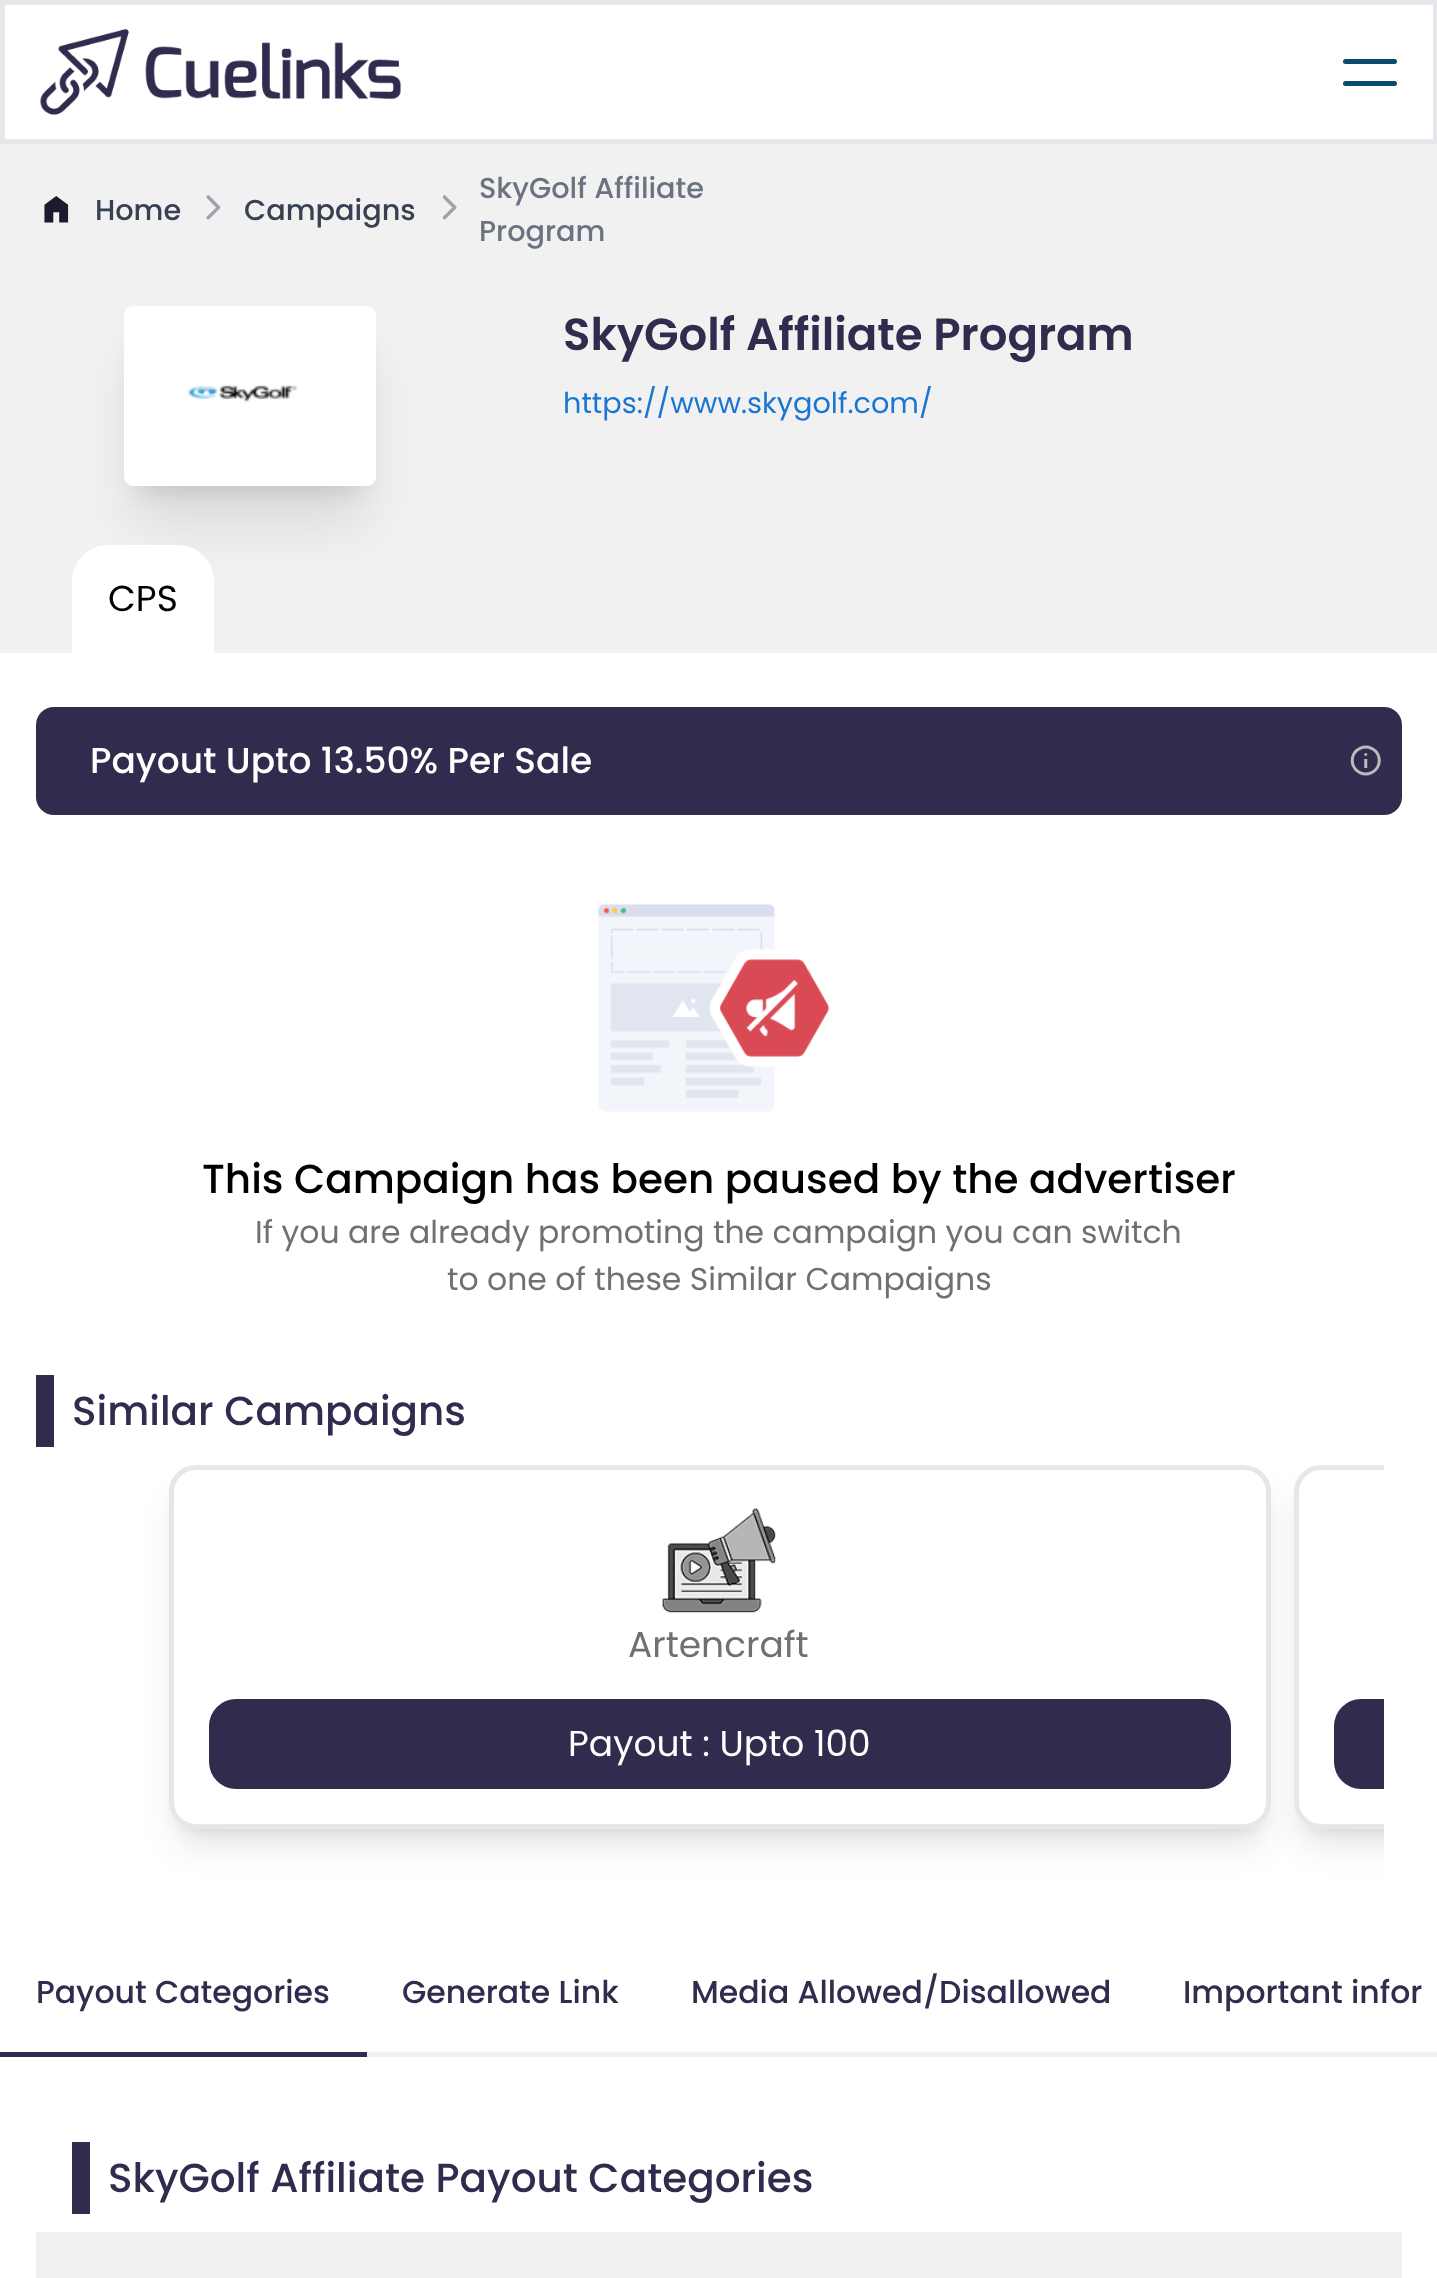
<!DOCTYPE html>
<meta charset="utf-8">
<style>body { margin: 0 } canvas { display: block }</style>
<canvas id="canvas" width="1437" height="2278"></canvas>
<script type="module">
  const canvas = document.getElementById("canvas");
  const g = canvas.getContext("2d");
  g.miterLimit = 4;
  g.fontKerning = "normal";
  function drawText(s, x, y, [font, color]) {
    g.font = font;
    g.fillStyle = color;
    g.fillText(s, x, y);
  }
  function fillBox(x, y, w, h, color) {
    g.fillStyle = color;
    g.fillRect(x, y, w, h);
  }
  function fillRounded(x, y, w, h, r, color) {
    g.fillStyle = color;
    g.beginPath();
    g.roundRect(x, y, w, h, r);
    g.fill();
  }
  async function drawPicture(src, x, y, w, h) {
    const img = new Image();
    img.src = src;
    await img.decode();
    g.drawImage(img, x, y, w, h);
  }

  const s1 = ["500 28.75px Poppins", "#374151"];
  const s2 = ["500 28.75px Poppins", "#6B7280"];
  const s3 = ["600 45px Poppins", "#332B4E"];
  const s4 = ["28.75px Poppins", "#1976D2"];
  const s5 = ["36px Poppins", "#000000"];
  const s6 = ["500 36px Poppins", "#FFFFFF"];
  const s7 = ["500 40.5px Poppins", "#000000"];
  const s8 = ["31.5px Poppins", "#707070"];
  const s9 = ["500 40.5px Poppins", "#332B4E"];
  const s10 = ["36px Poppins", "#707070"];
  const s11 = ["36px Poppins", "#FFFFFF"];
  const s12 = ["500 31.5px Poppins", "#332B4E"];

  fillBox(0, 0, 1437, 2278, "#FFFFFF");
  g.strokeStyle = "#E5E7EB";
  g.lineWidth = 5;
  g.strokeRect(2.5, 2.5, 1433, 139);
  await drawPicture("pic1.png", 40, 29, 361, 86);
  fillRounded(1343, 59, 54, 5, 2.5, "#0C4A6E");
  fillRounded(1343, 81, 54, 5, 2.5, "#0C4A6E");
  fillBox(0, 144, 1437, 509, "#F1F1F1");
  await drawPicture("pic2.png", 44, 196, 25, 27);
  drawText("Home", 95, 220, s1);
  await drawPicture("pic3.png", 206, 195, 15, 25);
  drawText("Campaigns", 244, 220, s1);
  await drawPicture("pic4.png", 442, 195, 15, 25);
  drawText("SkyGolf Affiliate", 479, 198, s2);
  drawText("Program", 479, 241, s2);
  g.fillStyle = "rgba(0, 0, 0, 0.1)";
  g.filter = "blur(11px)";
  g.beginPath();
  g.rect(137, 338, 225, 153);
  g.fill();
  g.filter = "none";
  g.filter = "blur(28px)";
  g.beginPath();
  g.rect(135, 362, 230, 158);
  g.fill();
  g.filter = "none";
  fillRounded(124, 306, 252, 180, 9, "#FFFFFF");
  await drawPicture("pic5.png", 187, 384, 110, 19);
  drawText("SkyGolf Affiliate Program", 563, 350, s3);
  drawText("https://www.skygolf.com/", 563, 413, s4);
  g.fillStyle = "#FFFFFF";
  g.beginPath();
  g.roundRect(72, 545, 142, 108, [36, 36, 0, 0]);
  g.fill();
  drawText("CPS", 108, 611, s5);
  fillRounded(36, 707, 1366, 108, 18, "#332B4E");
  drawText("Payout Upto 13.50% Per Sale", 90, 773, s6);
  await drawPicture("pic6.png", 1350, 745, 31, 31);
  await drawPicture("pic7.png", 598, 904, 232, 208);
  drawText("This Campaign has been paused by the advertiser", 202, 1193, s7);
  drawText("If you are already promoting the campaign you can switch", 255, 1243, s8);
  drawText("to one of these Similar Campaigns", 447, 1290, s8);
  fillBox(36, 1375, 18, 72, "#332B4E");
  drawText("Similar Campaigns", 72, 1425, s9);
  g.save();
  g.beginPath();
  g.moveTo(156, 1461);
  g.lineTo(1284, 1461);
  g.lineTo(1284, 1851);
  g.lineTo(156, 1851);
  g.closePath();
  g.moveTo(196, 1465);
  g.lineTo(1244, 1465);
  g.bezierCurveTo(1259, 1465, 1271, 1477, 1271, 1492);
  g.lineTo(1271, 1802);
  g.bezierCurveTo(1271, 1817, 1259, 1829, 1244, 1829);
  g.lineTo(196, 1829);
  g.bezierCurveTo(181, 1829, 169, 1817, 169, 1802);
  g.lineTo(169, 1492);
  g.bezierCurveTo(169, 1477, 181, 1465, 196, 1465);
  g.closePath();
  g.clip("evenodd");
  g.fillStyle = "rgba(0, 0, 0, 0.1)";
  g.filter = "blur(7px)";
  g.beginPath();
  g.roundRect(178, 1483, 1084, 346, 18);
  g.fill();
  g.filter = "none";
  g.restore();
  g.save();
  g.beginPath();
  g.moveTo(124, 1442);
  g.lineTo(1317, 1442);
  g.lineTo(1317, 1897);
  g.lineTo(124, 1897);
  g.closePath();
  g.moveTo(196, 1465);
  g.lineTo(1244, 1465);
  g.bezierCurveTo(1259, 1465, 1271, 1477, 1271, 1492);
  g.lineTo(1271, 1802);
  g.bezierCurveTo(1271, 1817, 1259, 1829, 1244, 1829);
  g.lineTo(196, 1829);
  g.bezierCurveTo(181, 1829, 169, 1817, 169, 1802);
  g.lineTo(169, 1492);
  g.bezierCurveTo(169, 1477, 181, 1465, 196, 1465);
  g.closePath();
  g.clip("evenodd");
  g.fillStyle = "rgba(0, 0, 0, 0.1)";
  g.filter = "blur(17px)";
  g.beginPath();
  g.roundRect(176, 1494, 1089, 351, 20);
  g.fill();
  g.filter = "none";
  g.restore();
  g.beginPath();
  g.roundRect(171.5, 1467.5, 1097, 359, 24.5);
  g.stroke();
  await drawPicture("pic8.png", 662, 1508, 114, 105);
  drawText("Artencraft", 628, 1657, s10);
  fillRounded(209, 1699, 1022, 90, 27, "#332B4E");
  drawText("Payout : Upto 100", 568, 1756, s11);
  g.save();
  g.beginPath();
  g.rect(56, 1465, 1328, 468);
  g.clip();
  g.beginPath();
  g.moveTo(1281, 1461);
  g.lineTo(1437, 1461);
  g.lineTo(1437, 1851);
  g.lineTo(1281, 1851);
  g.closePath();
  g.moveTo(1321, 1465);
  g.lineTo(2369, 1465);
  g.bezierCurveTo(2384, 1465, 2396, 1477, 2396, 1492);
  g.lineTo(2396, 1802);
  g.bezierCurveTo(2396, 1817, 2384, 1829, 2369, 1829);
  g.lineTo(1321, 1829);
  g.bezierCurveTo(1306, 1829, 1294, 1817, 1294, 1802);
  g.lineTo(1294, 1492);
  g.bezierCurveTo(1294, 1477, 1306, 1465, 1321, 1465);
  g.closePath();
  g.clip("evenodd");
  g.fillStyle = "rgba(0, 0, 0, 0.1)";
  g.filter = "blur(7px)";
  g.beginPath();
  g.roundRect(1303, 1483, 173, 346, 18);
  g.fill();
  g.filter = "none";
  g.restore();
  g.save();
  g.beginPath();
  g.rect(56, 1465, 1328, 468);
  g.clip();
  g.beginPath();
  g.moveTo(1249, 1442);
  g.lineTo(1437, 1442);
  g.lineTo(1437, 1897);
  g.lineTo(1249, 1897);
  g.closePath();
  g.moveTo(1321, 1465);
  g.lineTo(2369, 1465);
  g.bezierCurveTo(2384, 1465, 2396, 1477, 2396, 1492);
  g.lineTo(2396, 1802);
  g.bezierCurveTo(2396, 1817, 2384, 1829, 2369, 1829);
  g.lineTo(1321, 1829);
  g.bezierCurveTo(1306, 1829, 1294, 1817, 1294, 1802);
  g.lineTo(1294, 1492);
  g.bezierCurveTo(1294, 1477, 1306, 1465, 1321, 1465);
  g.closePath();
  g.clip("evenodd");
  g.fillStyle = "rgba(0, 0, 0, 0.1)";
  g.filter = "blur(17px)";
  g.beginPath();
  g.roundRect(1301, 1494, 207, 351, 20);
  g.fill();
  g.filter = "none";
  g.restore();
  g.save();
  g.beginPath();
  g.rect(56, 1465, 1328, 468);
  g.clip();
  g.beginPath();
  g.roundRect(1296.5, 1467.5, 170, 359, 24.5);
  g.stroke();
  g.restore();
  g.fillStyle = "#332B4E";
  g.beginPath();
  g.roundRect(1334, 1699, 50, 90, [27, 0, 0, 27]);
  g.fill();
  fillBox(0, 2052, 367, 5, "#332B4E");
  drawText("Payout Categories", 36, 2003, s12);
  fillBox(367, 2052, 1070, 5, "#F1F1F1");
  drawText("Generate Link", 402, 2003, s12);
  drawText("Media Allowed/Disallowed", 691, 2003, s12);
  drawText("Important infor", 1183, 2003, s12);
  fillBox(72, 2142, 18, 72, "#332B4E");
  drawText("SkyGolf Affiliate Payout Categories", 108, 2192, s9);
  fillBox(36, 2232, 1366, 46, "#F1F1F1");
</script>
